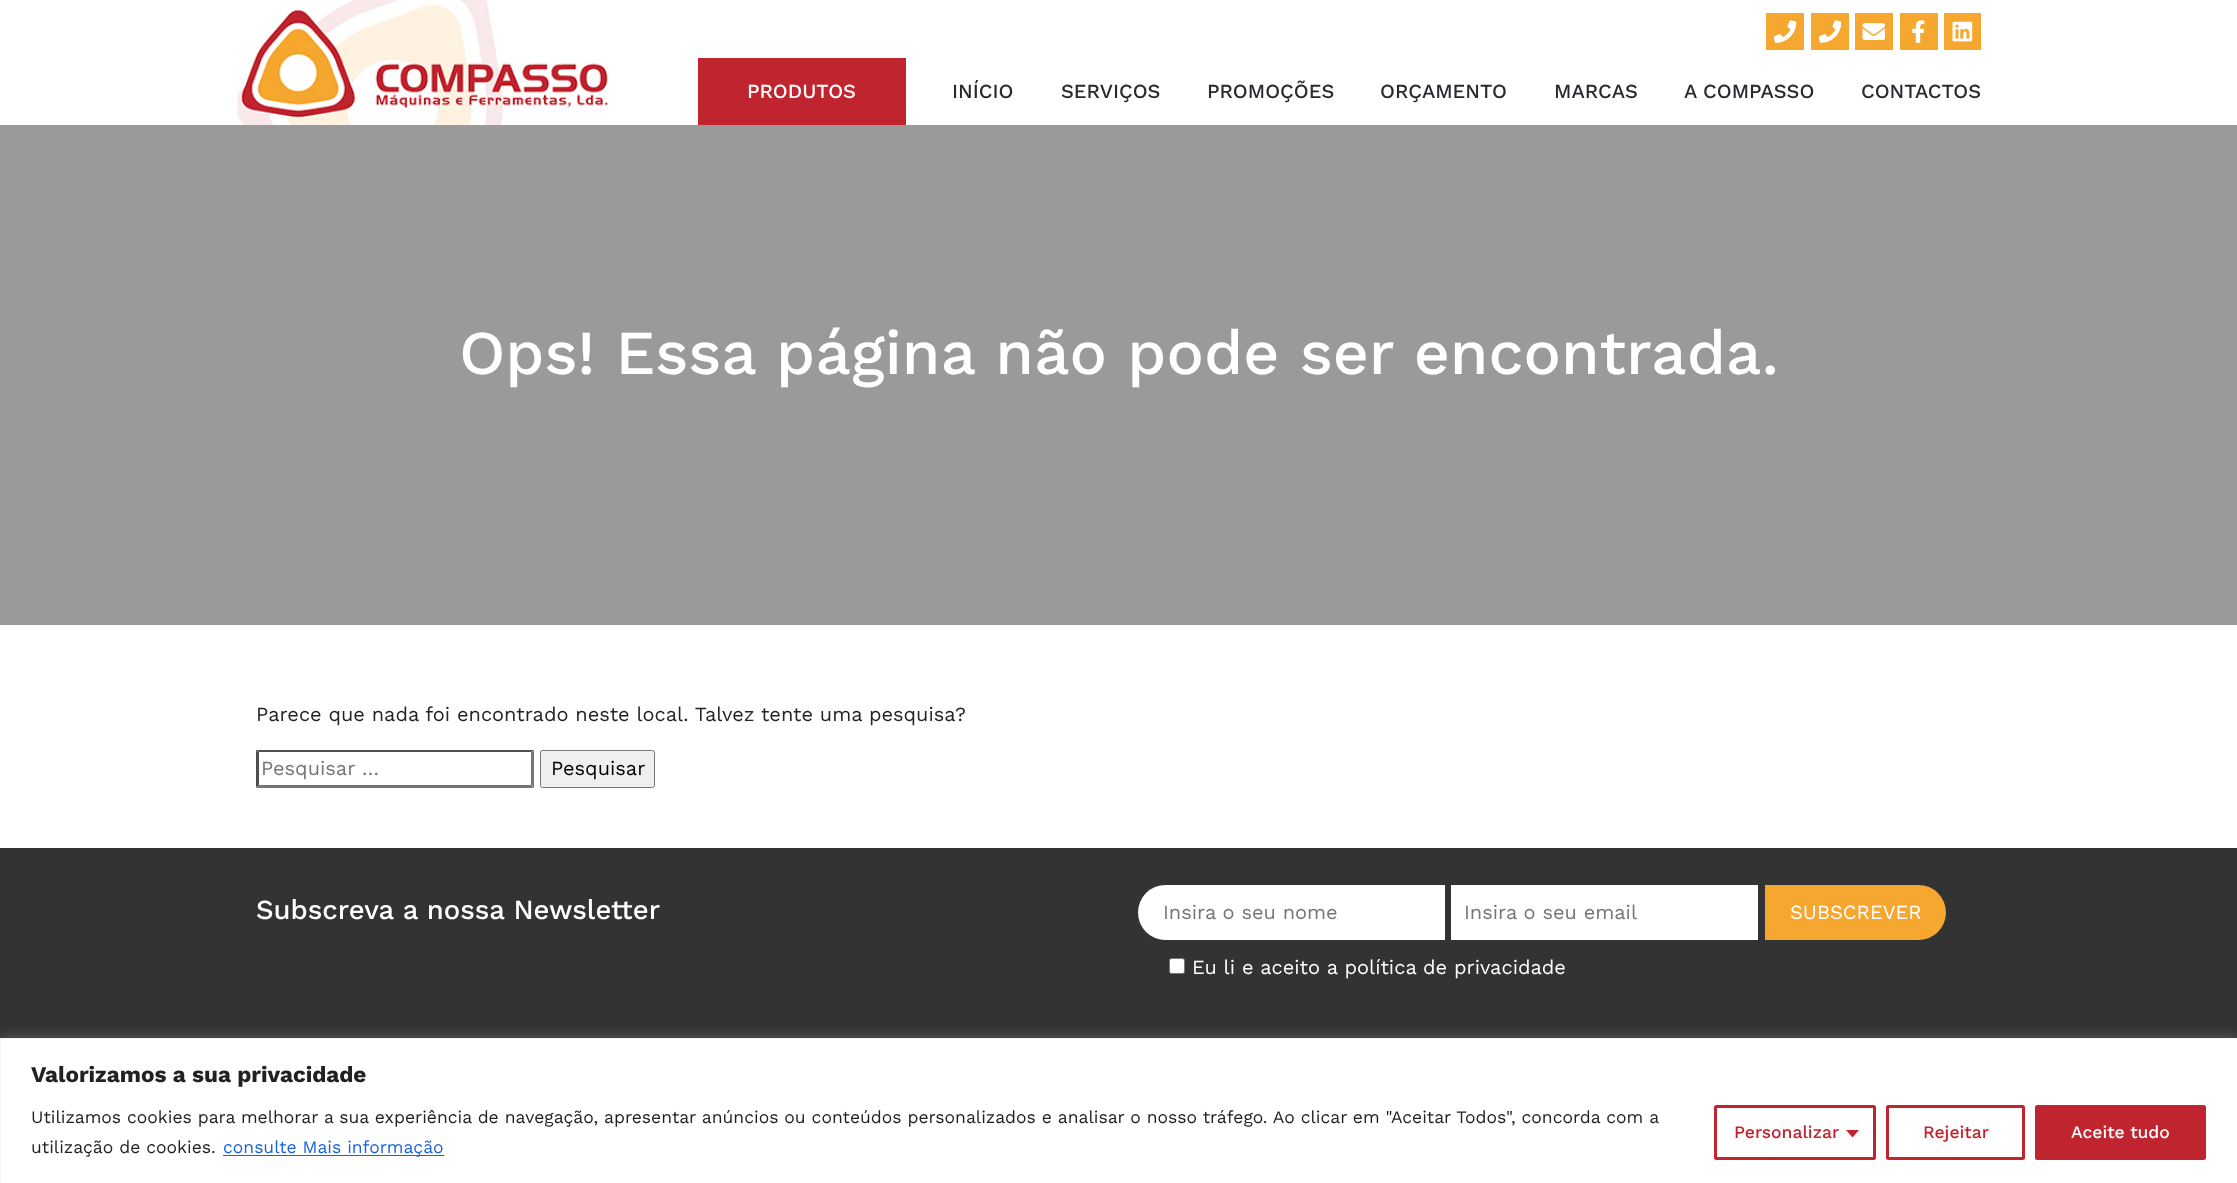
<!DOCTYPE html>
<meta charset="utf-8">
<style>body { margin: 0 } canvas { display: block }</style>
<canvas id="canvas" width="2237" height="1183"></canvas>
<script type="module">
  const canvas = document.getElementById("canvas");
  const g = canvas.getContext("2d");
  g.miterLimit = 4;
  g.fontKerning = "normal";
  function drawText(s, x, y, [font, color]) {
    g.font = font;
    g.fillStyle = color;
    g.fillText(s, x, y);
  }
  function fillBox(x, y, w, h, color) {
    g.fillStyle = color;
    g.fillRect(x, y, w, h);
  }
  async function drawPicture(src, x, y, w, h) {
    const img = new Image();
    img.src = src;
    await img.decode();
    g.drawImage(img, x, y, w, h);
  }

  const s1 = ["500 20px Work Sans", "#FFFFFF"];
  const s2 = ["500 20px Work Sans", "#282A2F"];
  const s3 = ["500 62.5px Work Sans", "#FFFFFF"];
  const s4 = ["20px Work Sans", "#212529"];
  const s5 = ["20px Work Sans", "#757575"];
  const s6 = ["20px Work Sans", "#000000"];
  const s7 = ["500 27.5px Work Sans", "#FFFFFF"];
  const s8 = ["20px Work Sans", "#FFFFFF"];
  const s9 = ["bold 22.5px Work Sans", "#212121"];
  const s10 = ["17.5px Work Sans", "#212121"];
  const s11 = ["17.5px Work Sans", "#1863DC"];
  const s12 = ["500 17.5px Work Sans", "#C0242F"];
  const s13 = ["500 17.5px Work Sans", "#FFFFFF"];

  fillBox(0, 0, 2237, 1183, "#FFFFFF");
  await drawPicture("pic1.png", 237, 0, 372, 125);
  fillBox(1766, 13, 38, 37, "#F6A730");
  await drawPicture("pic2.png", 1773, 20, 24, 23);
  fillBox(1811, 13, 38, 37, "#F6A730");
  await drawPicture("pic2.png", 1818, 20, 24, 23);
  fillBox(1855, 13, 38, 37, "#F6A730");
  await drawPicture("pic3.png", 1862, 23, 23, 17);
  fillBox(1900, 13, 38, 37, "#F6A730");
  await drawPicture("pic4.png", 1912, 20, 13, 23);
  fillBox(1944, 13, 37, 37, "#F6A730");
  await drawPicture("pic5.png", 1952, 21, 21, 21);
  fillBox(698, 58, 208, 67, "#C0242F");
  drawText("PRODUTOS", 747, 98, s1);
  drawText("INÍCIO", 952, 98, s2);
  drawText("SERVIÇOS", 1061, 98, s2);
  drawText("PROMOÇÕES", 1207, 98, s2);
  drawText("ORÇAMENTO", 1380, 98, s2);
  drawText("MARCAS", 1554, 98, s2);
  drawText("A COMPASSO", 1684, 98, s2);
  drawText("CONTACTOS", 1861, 98, s2);
  fillBox(0, 125, 2237, 500, "#9A9A9A");
  drawText("Ops! Essa página não pode ser encontrada.", 459, 374, s3);
  drawText("Parece que nada foi encontrado neste local. Talvez tente uma pesquisa?", 256, 721, s4);
  g.fillStyle = "#4F4F4F";
  g.beginPath();
  g.moveTo(256, 750);
  g.lineTo(534, 750);
  g.lineTo(531, 752);
  g.lineTo(259, 752);
  g.closePath();
  g.fill();
  g.fillStyle = "#767676";
  g.beginPath();
  g.moveTo(534, 750);
  g.lineTo(534, 787.5);
  g.lineTo(531, 785);
  g.lineTo(531, 752.5);
  g.closePath();
  g.fill();
  g.beginPath();
  g.moveTo(534, 788);
  g.lineTo(256, 788);
  g.lineTo(259, 785);
  g.lineTo(531, 785);
  g.closePath();
  g.fill();
  g.fillStyle = "#4F4F4F";
  g.beginPath();
  g.moveTo(256, 787.5);
  g.lineTo(256, 750);
  g.lineTo(259, 752.5);
  g.lineTo(259, 785);
  g.closePath();
  g.fill();
  drawText("Pesquisar …", 261, 775, s5);
  g.fillStyle = "#EFEFEF";
  g.beginPath();
  g.roundRect(540.5, 750.5, 114, 37, 2);
  g.fill();
  g.strokeStyle = "#767676";
  g.stroke();
  drawText("Pesquisar", 551, 775, s6);
  fillBox(0, 848, 2237, 190, "#333333");
  drawText("Subscreva a nossa Newsletter", 256, 919, s7);
  g.beginPath();
  g.roundRect(1138, 885, 307, 55, [27.5, 0, 0, 27.5]);
  g.fill();
  drawText("Insira o seu nome", 1163, 919, s5);
  fillBox(1451, 885, 307, 55, "#FFFFFF");
  drawText("Insira o seu email", 1464, 919, s5);
  g.fillStyle = "#F6A730";
  g.beginPath();
  g.roundRect(1765, 885, 181, 55, [0, 27.5, 27.5, 0]);
  g.fill();
  drawText("SUBSCREVER", 1790, 919, s8);
  g.beginPath();
  g.roundRect(1169.5, 958.5, 15, 15, 2);
  g.fill();
  g.stroke();
  drawText("Eu li e aceito a política de privacidade", 1192, 974, s8);
  g.fillStyle = "rgba(172, 171, 171, 0.3)";
  g.filter = "blur(6px)";
  g.beginPath();
  g.rect(0, 1036, 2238, 147);
  g.fill();
  g.filter = "none";
  g.fillStyle = "#FFFFFF";
  g.beginPath();
  g.rect(0.5, 1038.5, 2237, 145);
  g.fill();
  g.strokeStyle = "#F4F4F4";
  g.stroke();
  drawText("Valorizamos a sua privacidade", 31, 1082, s9);
  drawText("Utilizamos cookies para melhorar a sua experiência de navegação, apresentar anúncios ou conteúdos personalizados e analisar o nosso tráfego. Ao clicar em \"Aceitar Todos\", concorda com a", 31, 1123, s10);
  drawText("utilização de cookies.", 31, 1153, s10);
  fillBox(223, 1155, 221, 1, "#1863DC");
  drawText("consulte Mais informação", 223, 1153, s11);
  g.beginPath();
  g.roundRect(1715.5, 1106.5, 159, 52, 1);
  g.strokeStyle = "#C0242F";
  g.lineWidth = 3;
  g.stroke();
  drawText("Personalizar", 1734, 1138, s12);
  g.beginPath();
  g.moveTo(1846, 1130);
  g.lineTo(1859, 1130);
  g.lineTo(1852.5, 1137.5);
  g.closePath();
  g.fill();
  g.beginPath();
  g.roundRect(1887.5, 1106.5, 136, 52, 1);
  g.stroke();
  drawText("Rejeitar", 1923, 1138, s12);
  g.beginPath();
  g.roundRect(2036.5, 1106.5, 168, 52, 1);
  g.fill();
  g.stroke();
  drawText("Aceite tudo", 2071, 1138, s13);
</script>
